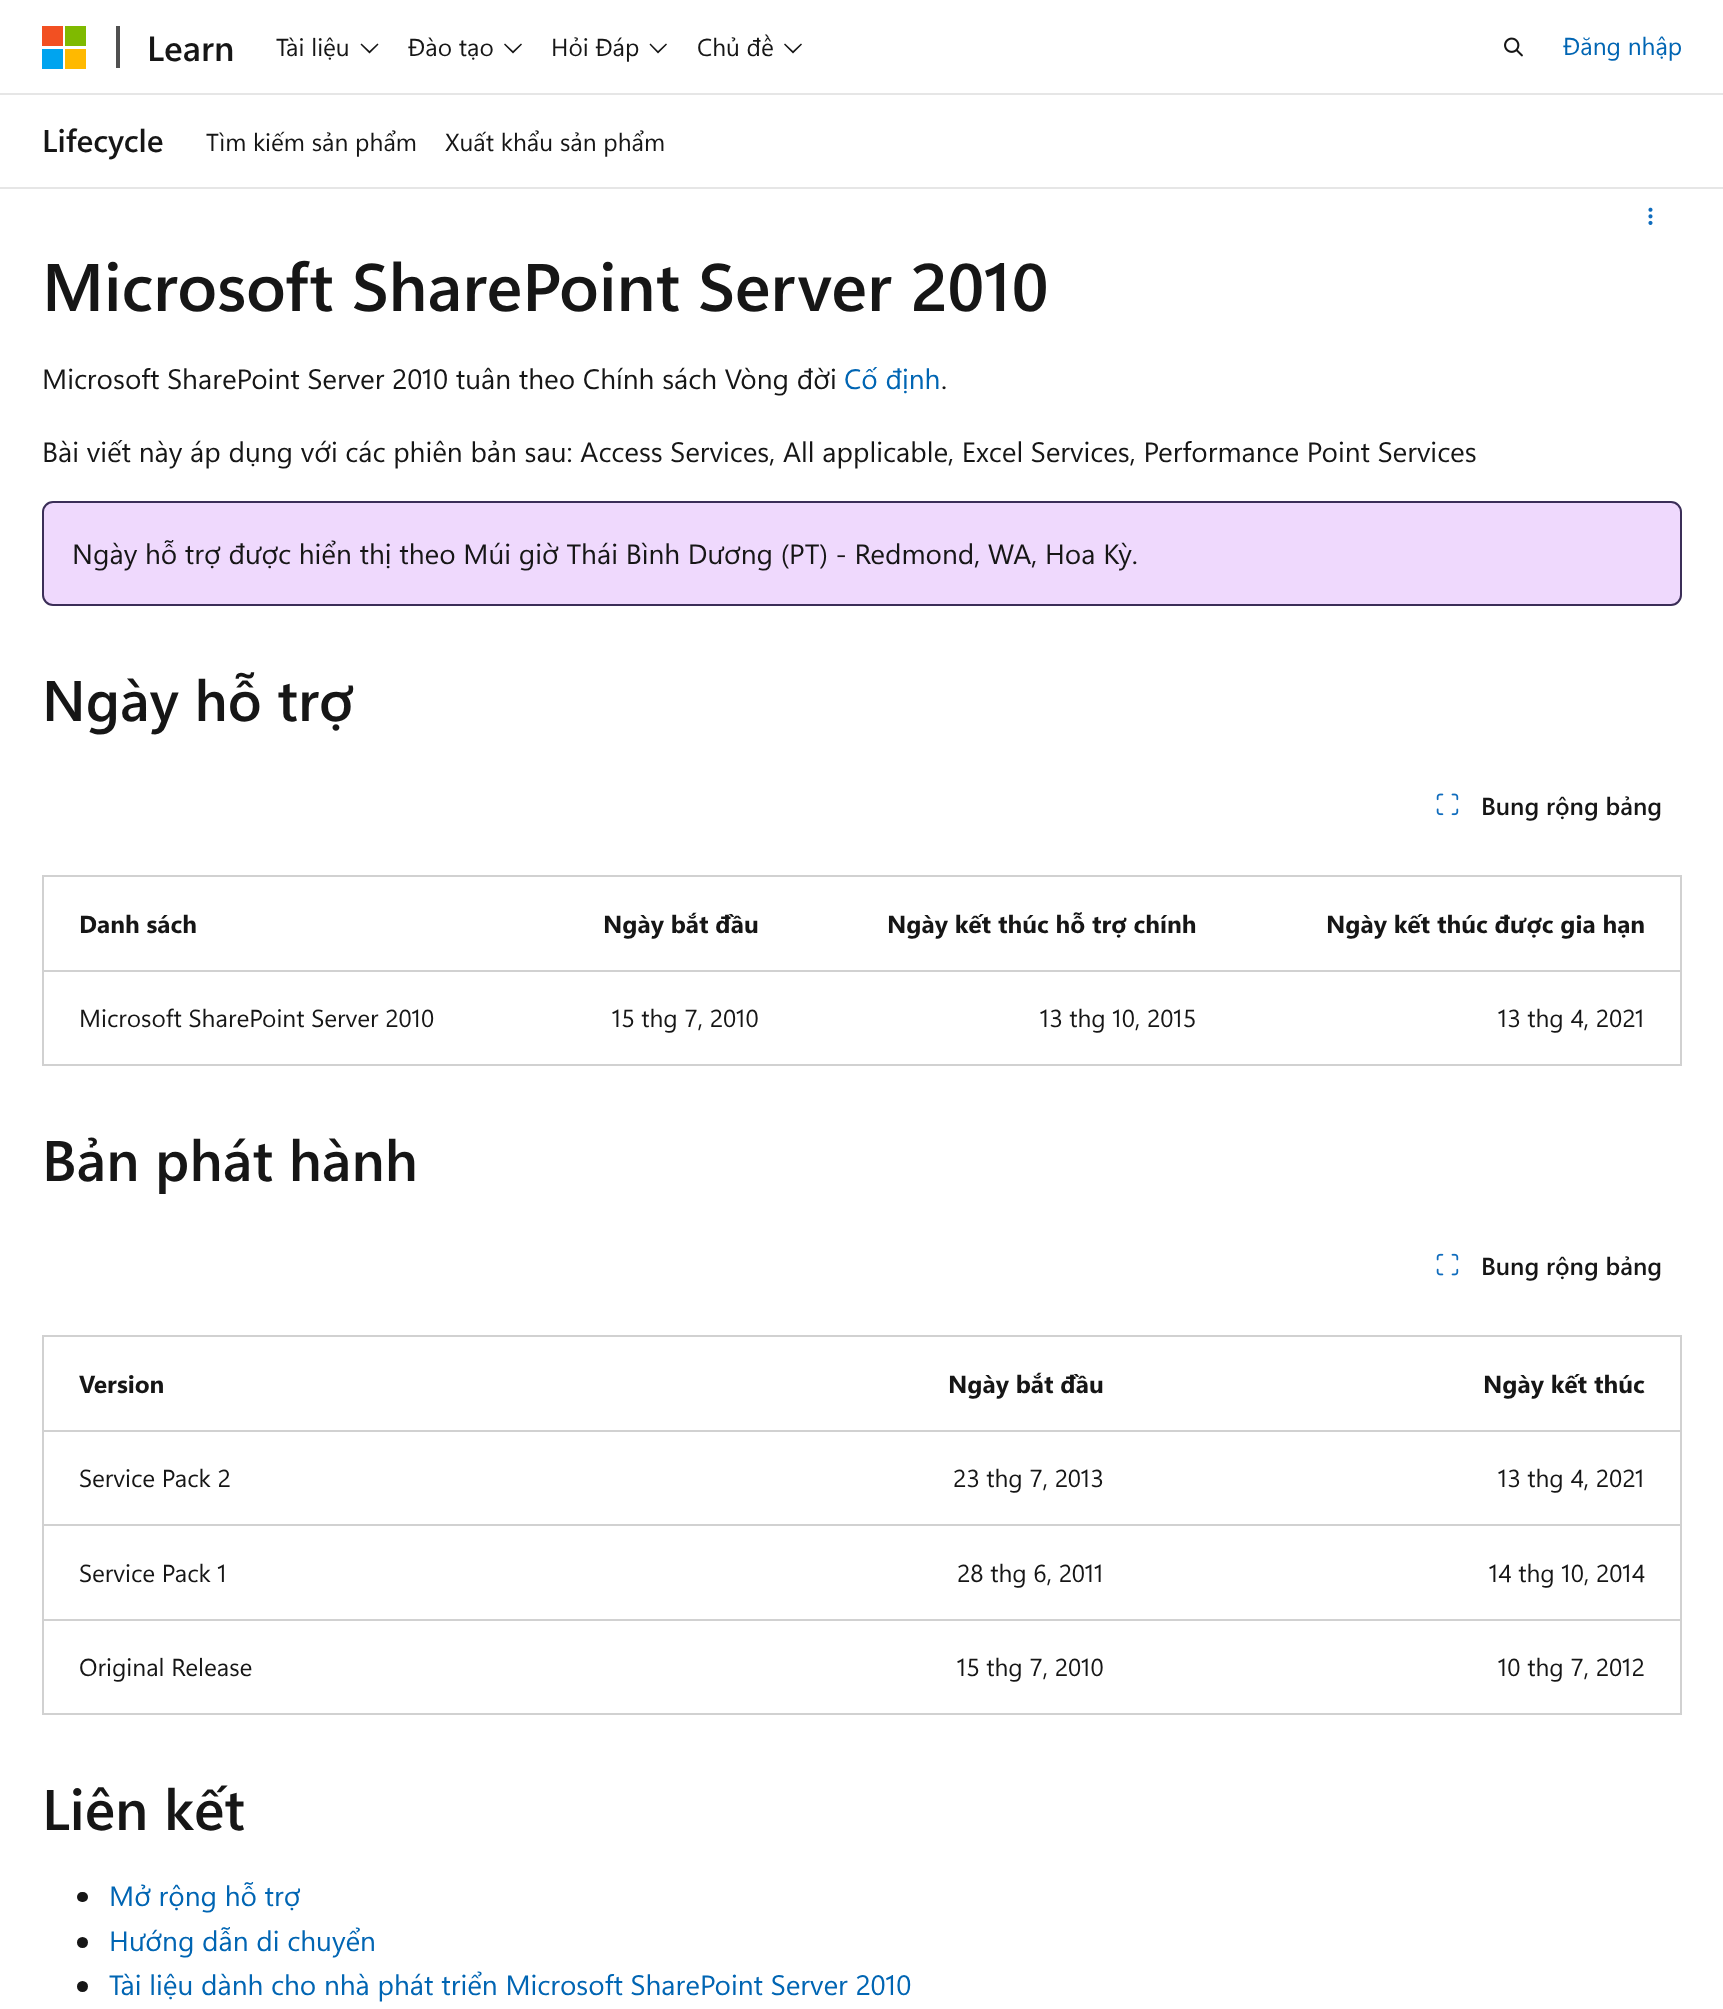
<!DOCTYPE html>
<meta charset="utf-8">
<style>body { margin: 0 } canvas { display: block }</style>
<canvas id="canvas" width="1723" height="2009"></canvas>
<script type="module">
  const canvas = document.getElementById("canvas");
  const g = canvas.getContext("2d");
  g.miterLimit = 4;
  g.fontKerning = "normal";
  function drawText(s, x, y, [font, color]) {
    g.font = font;
    g.fillStyle = color;
    g.fillText(s, x, y);
  }
  function fillBox(x, y, w, h, color) {
    g.fillStyle = color;
    g.fillRect(x, y, w, h);
  }
  function fillRounded(x, y, w, h, r, color) {
    g.fillStyle = color;
    g.beginPath();
    g.roundRect(x, y, w, h, r);
    g.fill();
  }
  async function drawPicture(src, x, y, w, h) {
    const img = new Image();
    img.src = src;
    await img.decode();
    g.drawImage(img, x, y, w, h);
  }

  const s1 = ["600 35px Segoe UI", "#161616"];
  const s2 = ["24.5px Segoe UI", "#161616"];
  const s3 = ["24.5px Segoe UI", "#0065B3"];
  const s4 = ["600 31.5px Segoe UI", "#161616"];
  const s5 = ["600 67px Segoe UI", "#161616"];
  const s6 = ["28px Segoe UI", "#161616"];
  const s7 = ["28px Segoe UI", "#0065B3"];
  const s8 = ["600 57px Segoe UI", "#161616"];
  const s9 = ["600 24.5px Segoe UI", "#161616"];
  const s10 = ["bold 24.5px Segoe UI", "#161616"];

  fillBox(0, 0, 1723, 2009, "#FFFFFF");
  fillBox(0, 93, 1723, 2, "#E6E6E6");
  fillBox(42, 26, 21, 20, "#F25022");
  fillBox(65, 26, 21, 20, "#7FBA00");
  fillBox(42, 49, 21, 20, "#00A4EF");
  fillBox(65, 49, 21, 20, "#FFB900");
  fillBox(116, 26, 4, 42, "#505050");
  drawText("Learn", 147, 61, s1);
  drawText("Tài liệu", 276, 56, s2);
  g.beginPath();
  g.moveTo(369.5, 53.5);
  g.lineTo(360.5, 44.5);
  g.lineTo(361.5, 43.5);
  g.lineTo(369.5, 51);
  g.lineTo(377.5, 43.5);
  g.lineTo(378.5, 44.5);
  g.closePath();
  g.fill();
  drawText("Đào tạo", 408, 56, s2);
  g.beginPath();
  g.moveTo(513, 53.5);
  g.lineTo(504, 44.5);
  g.lineTo(505, 43.5);
  g.lineTo(513, 51);
  g.lineTo(521, 43.5);
  g.lineTo(522, 44.5);
  g.closePath();
  g.fill();
  drawText("Hỏi Đáp", 551, 56, s2);
  g.beginPath();
  g.moveTo(658, 53.5);
  g.lineTo(649.5, 44.5);
  g.lineTo(650.5, 43.5);
  g.lineTo(658, 51);
  g.lineTo(666, 43.5);
  g.lineTo(667, 44.5);
  g.closePath();
  g.fill();
  drawText("Chủ đề", 697, 56, s2);
  g.beginPath();
  g.moveTo(793, 53.5);
  g.lineTo(784, 44.5);
  g.lineTo(785, 43.5);
  g.lineTo(793, 51);
  g.lineTo(801, 43.5);
  g.lineTo(802, 44.5);
  g.closePath();
  g.fill();
  await drawPicture("pic1.png", 1504, 37, 19, 20);
  drawText("Đăng nhập", 1563, 55, s3);
  fillBox(0, 187, 1723, 2, "#E6E6E6");
  drawText("Lifecycle", 42, 152, s4);
  drawText("Tìm kiếm sản phẩm", 206, 151, s2);
  drawText("Xuất khẩu sản phẩm", 445, 151, s2);
  await drawPicture("pic2.png", 1648, 207, 5, 18);
  drawText("Microsoft SharePoint Server 2010", 42, 311, s5);
  drawText("Microsoft SharePoint Server 2010 tuân theo Chính sách Vòng đời", 42, 389, s6);
  drawText("Cố định", 844, 389, s7);
  drawText(".", 941, 389, s6);
  drawText("Bài viết này áp dụng với các phiên bản sau: Access Services, All applicable, Excel Services, Performance Point Services", 42, 462, s6);
  g.fillStyle = "#EFD9FD";
  g.beginPath();
  g.roundRect(43, 502, 1638, 103, 10);
  g.fill();
  g.strokeStyle = "#3B2E58";
  g.lineWidth = 2;
  g.stroke();
  drawText("Ngày hỗ trợ được hiển thị theo Múi giờ Thái Bình Dương (PT) - Redmond, WA, Hoa Kỳ.", 72, 564, s6);
  drawText("Ngày hỗ trợ", 42, 721, s8);
  await drawPicture("pic3.png", 1436, 793, 23, 23);
  drawText("Bung rộng bảng", 1481, 815, s9);
  fillBox(42, 875, 1640, 2, "#D1D1D1");
  fillBox(1680, 875, 2, 191, "#D1D1D1");
  fillBox(42, 1064, 1640, 2, "#D1D1D1");
  fillBox(42, 875, 2, 191, "#D1D1D1");
  drawText("Danh sách", 79, 933, s10);
  drawText("Ngày bắt đầu", 603, 933, s10);
  drawText("Ngày kết thúc hỗ trợ chính", 887, 933, s10);
  drawText("Ngày kết thúc được gia hạn", 1326, 933, s10);
  drawText("Microsoft SharePoint Server 2010", 79, 1027, s2);
  drawText("15 thg 7, 2010", 612, 1027, s2);
  drawText("13 thg 10, 2015", 1040, 1027, s2);
  fillBox(42, 970, 1640, 2, "#D1D1D1");
  drawText("13 thg 4, 2021", 1498, 1027, s2);
  drawText("Bản phát hành", 42, 1181, s8);
  await drawPicture("pic4.png", 1436, 1253, 23, 23);
  drawText("Bung rộng bảng", 1481, 1275, s9);
  fillBox(42, 1335, 1640, 2, "#D1D1D1");
  fillBox(1680, 1335, 2, 380, "#D1D1D1");
  fillBox(42, 1713, 1640, 2, "#D1D1D1");
  fillBox(42, 1335, 2, 380, "#D1D1D1");
  drawText("Version", 79, 1393, s10);
  drawText("Ngày bắt đầu", 948, 1393, s10);
  drawText("Ngày kết thúc", 1483, 1393, s10);
  drawText("Service Pack 2", 79, 1487, s2);
  drawText("23 thg 7, 2013", 953, 1487, s2);
  fillBox(42, 1430, 1640, 2, "#D1D1D1");
  drawText("13 thg 4, 2021", 1498, 1487, s2);
  drawText("Service Pack 1", 79, 1582, s2);
  drawText("28 thg 6, 2011", 957, 1582, s2);
  fillBox(42, 1524, 1640, 2, "#D1D1D1");
  drawText("14 thg 10, 2014", 1489, 1582, s2);
  drawText("Original Release", 79, 1676, s2);
  drawText("15 thg 7, 2010", 957, 1676, s2);
  fillBox(42, 1619, 1640, 2, "#D1D1D1");
  drawText("10 thg 7, 2012", 1498, 1676, s2);
  drawText("Liên kết", 42, 1830, s8);
  fillRounded(77, 1892, 11, 10, 5, "#161616");
  drawText("Mở rộng hỗ trợ", 109, 1906, s7);
  g.fillStyle = "#161616";
  g.beginPath();
  g.arc(82.5, 1942.5, 5.5, 0, Math.PI * 2);
  g.fill();
  drawText("Hướng dẫn di chuyển", 109, 1951, s7);
  g.fillStyle = "#161616";
  g.beginPath();
  g.arc(82.5, 1986.5, 5.5, 0, Math.PI * 2);
  g.fill();
  drawText("Tài liệu dành cho nhà phát triển Microsoft SharePoint Server 2010", 109, 1995, s7);
</script>
